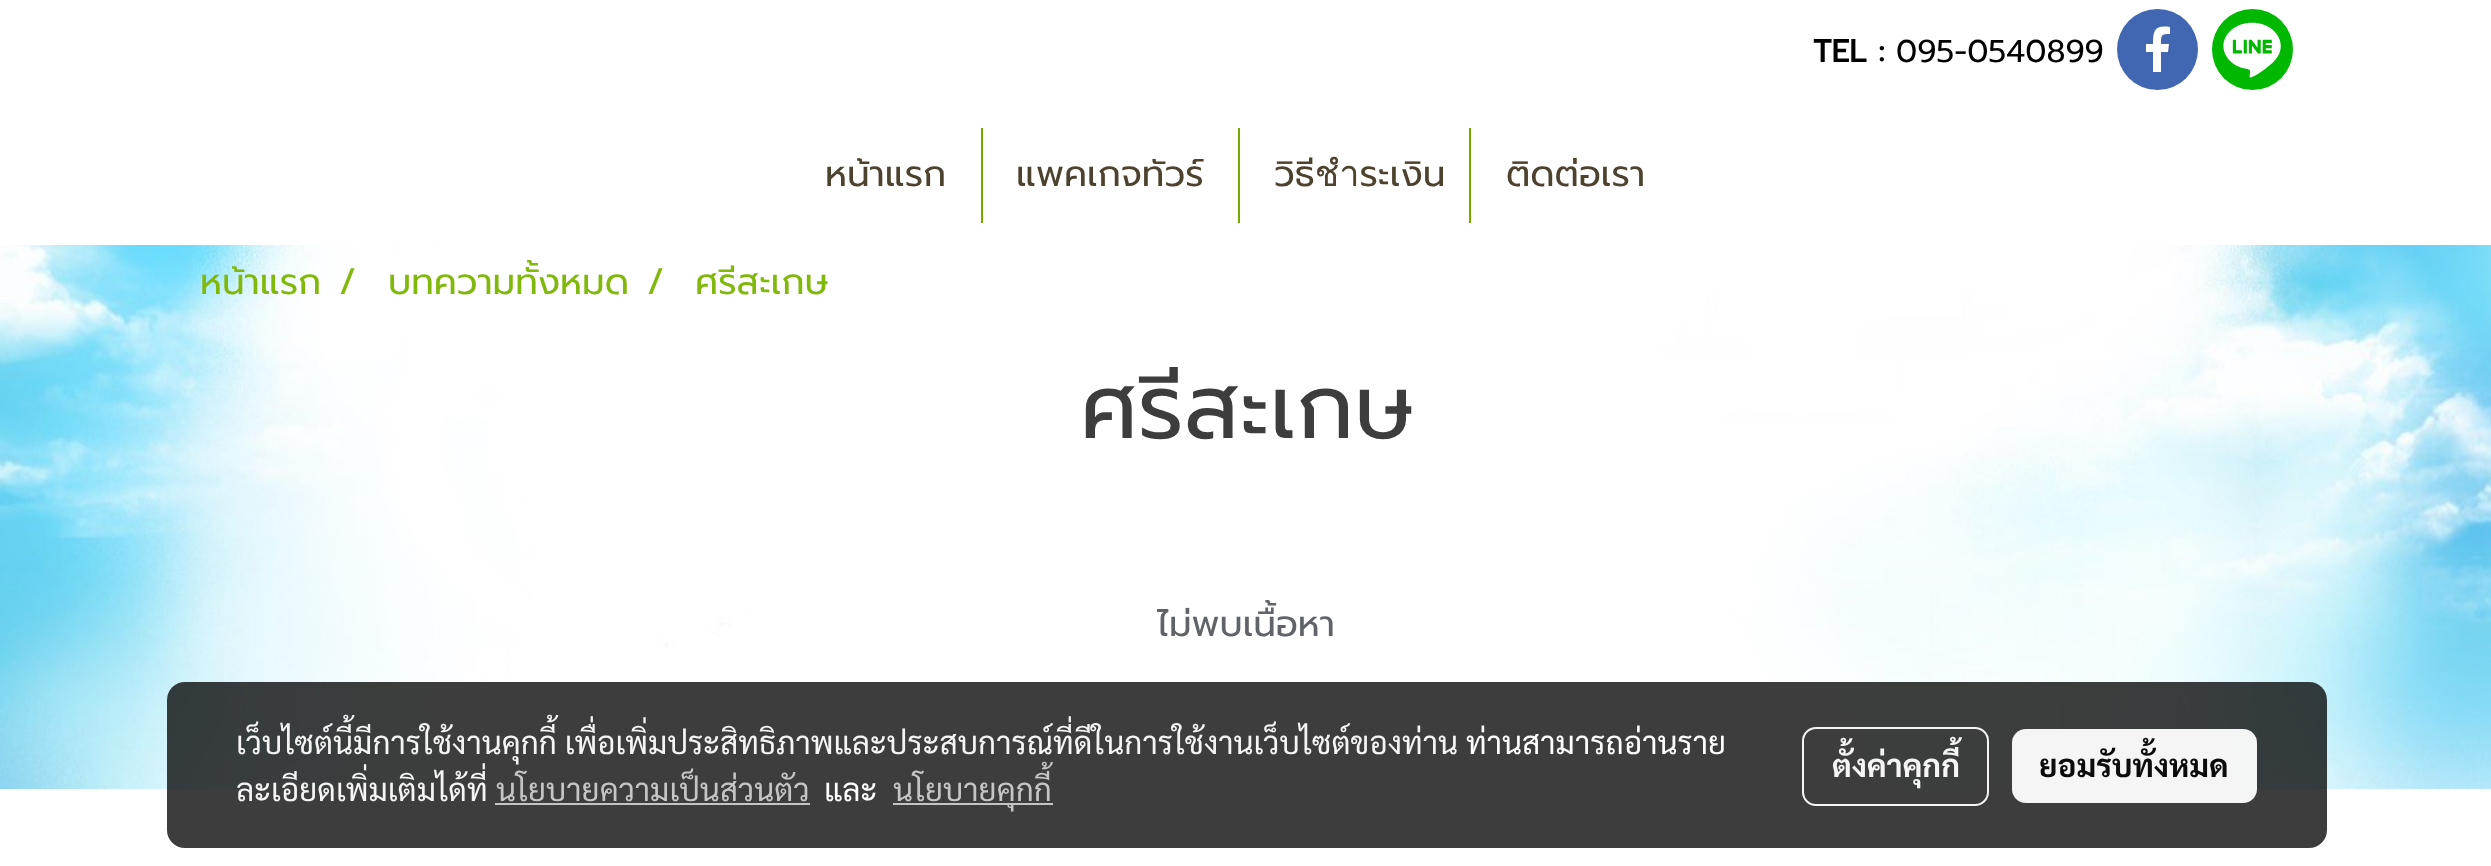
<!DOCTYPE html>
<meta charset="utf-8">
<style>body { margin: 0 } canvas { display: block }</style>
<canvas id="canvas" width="2491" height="866"></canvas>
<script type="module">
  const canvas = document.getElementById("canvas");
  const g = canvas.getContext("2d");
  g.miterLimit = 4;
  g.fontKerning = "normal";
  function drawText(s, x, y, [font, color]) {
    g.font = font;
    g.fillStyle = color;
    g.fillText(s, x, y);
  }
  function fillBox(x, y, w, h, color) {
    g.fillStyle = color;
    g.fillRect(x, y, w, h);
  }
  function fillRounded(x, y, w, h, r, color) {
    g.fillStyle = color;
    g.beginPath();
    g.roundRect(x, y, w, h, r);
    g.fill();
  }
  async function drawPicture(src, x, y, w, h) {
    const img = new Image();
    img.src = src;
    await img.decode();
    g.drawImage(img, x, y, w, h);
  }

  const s1 = ["bold 31.5px Prompt", "#000000"];
  const s2 = ["31.5px Prompt", "#000000"];
  const s3 = ["36px Prompt", "#4D422D"];
  const s4 = ["36px Prompt", "#81B80C"];
  const s5 = ["90px Prompt", "#3D3D3D"];
  const s6 = ["36px Prompt", "#606367"];
  const s7 = ["31.5px Sarabun", "#F5F5F5"];
  const s8 = ["31.5px Sarabun", "#FFFFFF"];
  const s9 = ["31.5px Sarabun", "#C5C5C5"];
  const s10 = ["bold 31.5px Sarabun", "#F5F5F5"];
  const s11 = ["bold 31.5px Sarabun", "#0C0C0C"];

  fillBox(0, 0, 2491, 866, "#FFFFFF");
  await drawPicture("pic1.png", 0, 245, 2491, 544);
  drawText("TEL :", 1813, 62, s1);
  drawText("095-0540899", 1896, 62, s2);
  g.fillStyle = "#4267B2";
  g.beginPath();
  g.arc(2157.5, 49.5, 40.5, 0, Math.PI * 2);
  g.fill();
  g.fillStyle = "#FFFFFF";
  g.beginPath();
  g.moveTo(2153, 72);
  g.lineTo(2153, 52);
  g.lineTo(2146, 52);
  g.lineTo(2146, 44);
  g.lineTo(2153, 44);
  g.bezierCurveTo(2153, 30, 2155, 25, 2170, 27);
  g.lineTo(2170, 34);
  g.bezierCurveTo(2161, 34, 2161, 35, 2161, 44);
  g.lineTo(2169, 44);
  g.lineTo(2168, 52);
  g.lineTo(2161, 52);
  g.lineTo(2161, 72);
  g.fill();
  g.fillStyle = "#00B800";
  g.beginPath();
  g.arc(2252.5, 49.5, 40.5, 0, Math.PI * 2);
  g.fill();
  await drawPicture("pic2.png", 2223, 22, 69, 56);
  fillBox(981, 128, 2, 95, "#72AB00");
  drawText("หน้าแรก", 825, 186, s3);
  fillBox(1238, 128, 2, 95, "#72AB00");
  drawText("แพคเกจทัวร์", 1016, 186, s3);
  fillBox(1469, 128, 2, 95, "#72AB00");
  drawText("วิธีชำระเงิน", 1274, 186, s3);
  drawText("ติดต่อเรา", 1506, 186, s3);
  drawText("หน้าแรก", 200, 294, s4);
  drawText("/", 339, 294, s4);
  drawText("บทความทั้งหมด", 388, 294, s4);
  drawText("/", 647, 294, s4);
  drawText("ศรีสะเกษ", 695, 294, s4);
  drawText("ศรีสะเกษ", 1080, 438, s5);
  drawText("ไม่พบเนื้อหา", 1157, 636, s6);
  fillRounded(167, 682, 2160, 166, 18, "rgba(0, 0, 0, 0.76)");
  drawText("เว็บไซต์นี้มีการใช้งานคุกกี้ เพื่อเพิ่มประสิทธิภาพและประสบการณ์ที่ดีในการใช้งานเว็บไซต์ของท่าน", 236, 754, s7);
  drawText("ท่านสามารถอ่านราย", 1466, 754, s8);
  drawText("ละเอียดเพิ่มเติมได้ที่", 236, 801, s7);
  drawText("นโยบายความเป็นส่วนตัว", 496, 801, s9);
  fillBox(495, 803, 315, 2, "#C5C5C5");
  drawText("และ", 824, 801, s8);
  fillBox(893, 803, 160, 2, "#C5C5C5");
  drawText("นโยบายคุกกี้", 893, 801, s9);
  g.beginPath();
  g.roundRect(1803, 728, 185, 77, 13);
  g.strokeStyle = "#F5F5F5";
  g.lineWidth = 2;
  g.stroke();
  drawText("ตั้งค่าคุกกี้", 1832, 777, s10);
  fillRounded(2012, 729, 245, 74, 14, "rgba(255, 255, 255, 0.95)");
  drawText("ยอมรับทั้งหมด", 2039, 777, s11);
</script>
